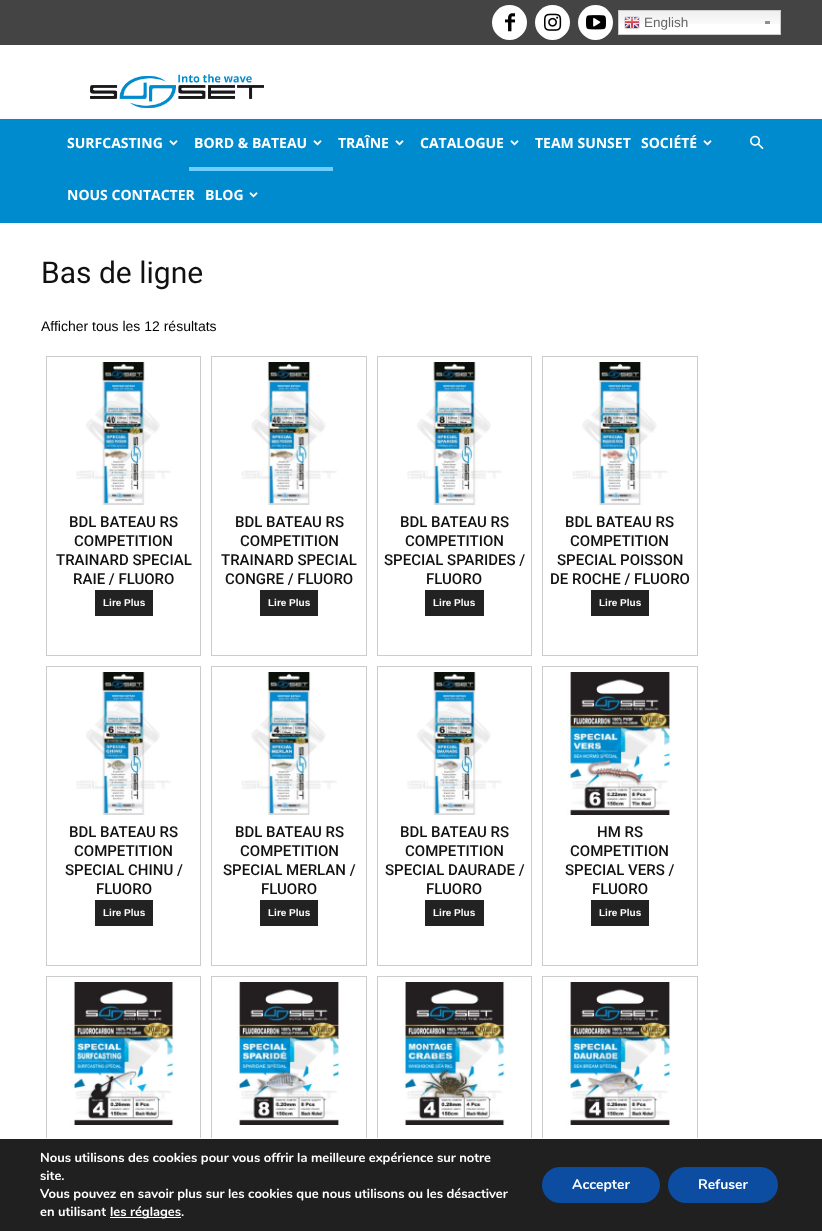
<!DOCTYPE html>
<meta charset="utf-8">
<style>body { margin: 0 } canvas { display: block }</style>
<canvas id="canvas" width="822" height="1231"></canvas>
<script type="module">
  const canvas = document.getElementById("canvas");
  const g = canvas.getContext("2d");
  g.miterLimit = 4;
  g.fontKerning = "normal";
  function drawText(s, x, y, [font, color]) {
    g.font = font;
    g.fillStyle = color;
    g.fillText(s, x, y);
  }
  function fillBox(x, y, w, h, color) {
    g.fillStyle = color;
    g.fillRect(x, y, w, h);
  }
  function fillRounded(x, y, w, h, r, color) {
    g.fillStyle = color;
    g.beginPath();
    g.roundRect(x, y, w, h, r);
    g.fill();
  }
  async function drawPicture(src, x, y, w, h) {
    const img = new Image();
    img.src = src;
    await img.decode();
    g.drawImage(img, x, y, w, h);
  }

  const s1 = ["13.5px Liberation Sans", "#666666"];
  const s2 = ["bold 14px Open Sans", "#FFFFFF"];
  const s3 = ["30px Roboto", "#111111"];
  const s4 = ["14px Liberation Sans", "#000000"];
  const s5 = ["500 15px Roboto", "#111111"];
  const s6 = ["bold 10px Liberation Sans", "#FFFFFF"];
  const s7 = ["bold 13px Nunito", "#FFFFFF"];
  const s8 = ["bold 14px Nunito", "#FFFFFF"];

  fillBox(0, 0, 822, 1231, "#FFFFFF");
  fillBox(0, 0, 822, 45, "#444444");
  g.fillStyle = "#FFFFFF";
  g.beginPath();
  g.arc(509.5, 22.5, 17.5, 0, Math.PI * 2);
  g.fill();
  await drawPicture("pic1.png", 505, 13, 10, 19);
  g.beginPath();
  g.arc(552.5, 22.5, 17.5, 0, Math.PI * 2);
  g.fill();
  await drawPicture("pic2.png", 544, 13, 18, 18);
  g.beginPath();
  g.arc(595.5, 22.5, 17.5, 0, Math.PI * 2);
  g.fill();
  await drawPicture("pic3.png", 586, 15, 20, 15);
  fillBox(619, 24, 161, 10, "#FFFFFF");
  await drawPicture("pic4.png", 619, 11, 161, 13);
  fillBox(765, 21, 5, 3, "#8F8F8F");
  g.strokeStyle = "#CCCCCC";
  g.strokeRect(618.5, 10.5, 162, 24);
  await drawPicture("pic5.png", 624, 16, 16, 14);
  drawText("English", 644, 27, s1);
  await drawPicture("pic6.png", 90, 74, 174, 34);
  fillBox(0, 119, 822, 104, "#008BCF");
  drawText("SURFCASTING", 67, 148, s2);
  await drawPicture("pic7.png", 169, 140, 9, 6);
  fillBox(189, 167, 144, 4, "#71CDFA");
  drawText("BORD & BATEAU", 194, 148, s2);
  await drawPicture("pic7.png", 313, 140, 9, 6);
  drawText("TRAÎNE", 338, 148, s2);
  await drawPicture("pic7.png", 395, 140, 9, 6);
  drawText("CATALOGUE", 420, 148, s2);
  await drawPicture("pic7.png", 510, 140, 9, 6);
  drawText("TEAM SUNSET", 535, 148, s2);
  drawText("SOCIÉTÉ", 641, 148, s2);
  await drawPicture("pic7.png", 703, 140, 9, 6);
  drawText("NOUS CONTACTER", 67, 200, s2);
  drawText("BLOG", 205, 200, s2);
  await drawPicture("pic7.png", 249, 192, 9, 6);
  await drawPicture("pic8.png", 750, 135, 14, 15);
  drawText("Bas de ligne", 41, 283, s3);
  drawText("Afficher tous les 12 résultats", 41, 331, s4);
  g.strokeRect(46.5, 356.5, 154, 299);
  await drawPicture("pic9.png", 76, 362, 95, 143);
  drawText("BDL BATEAU RS", 69, 527, s5);
  drawText("COMPETITION", 74, 546, s5);
  drawText("TRAINARD SPECIAL", 56, 565, s5);
  drawText("RAIE / FLUORO", 73, 584, s5);
  fillBox(95, 590, 58, 26, "#222222");
  drawText("Lire Plus", 103, 606, s6);
  g.strokeRect(211.5, 356.5, 155, 299);
  await drawPicture("pic10.png", 241, 362, 96, 143);
  drawText("BDL BATEAU RS", 235, 527, s5);
  drawText("COMPETITION", 240, 546, s5);
  drawText("TRAINARD SPECIAL", 221, 565, s5);
  drawText("CONGRE / FLUORO", 225, 584, s5);
  fillBox(260, 590, 58, 26, "#222222");
  drawText("Lire Plus", 268, 606, s6);
  g.strokeRect(377.5, 356.5, 154, 299);
  await drawPicture("pic11.png", 407, 362, 95, 143);
  drawText("BDL BATEAU RS", 400, 527, s5);
  drawText("COMPETITION", 405, 546, s5);
  drawText("SPECIAL SPARIDES /", 384, 565, s5);
  drawText("FLUORO", 426, 584, s5);
  fillBox(425, 590, 59, 26, "#222222");
  drawText("Lire Plus", 433, 606, s6);
  g.strokeRect(542.5, 356.5, 155, 299);
  await drawPicture("pic12.png", 572, 362, 96, 143);
  drawText("BDL BATEAU RS", 565, 527, s5);
  drawText("COMPETITION", 570, 546, s5);
  drawText("SPECIAL POISSON", 557, 565, s5);
  drawText("DE ROCHE / FLUORO", 550, 584, s5);
  fillBox(591, 590, 58, 26, "#222222");
  drawText("Lire Plus", 599, 606, s6);
  g.strokeRect(46.5, 666.5, 154, 299);
  await drawPicture("pic13.png", 76, 672, 95, 143);
  drawText("BDL BATEAU RS", 69, 837, s5);
  drawText("COMPETITION", 74, 856, s5);
  drawText("SPECIAL CHINU /", 65, 875, s5);
  drawText("FLUORO", 96, 894, s5);
  fillBox(95, 900, 58, 26, "#222222");
  drawText("Lire Plus", 103, 916, s6);
  g.strokeRect(211.5, 666.5, 155, 299);
  await drawPicture("pic14.png", 241, 672, 96, 143);
  drawText("BDL BATEAU RS", 235, 837, s5);
  drawText("COMPETITION", 240, 856, s5);
  drawText("SPECIAL MERLAN /", 223, 875, s5);
  drawText("FLUORO", 261, 894, s5);
  fillBox(260, 900, 58, 26, "#222222");
  drawText("Lire Plus", 268, 916, s6);
  g.strokeRect(377.5, 666.5, 154, 299);
  await drawPicture("pic15.png", 407, 672, 95, 143);
  drawText("BDL BATEAU RS", 400, 837, s5);
  drawText("COMPETITION", 405, 856, s5);
  drawText("SPECIAL DAURADE /", 385, 875, s5);
  drawText("FLUORO", 426, 894, s5);
  fillBox(425, 900, 59, 26, "#222222");
  drawText("Lire Plus", 433, 916, s6);
  g.strokeRect(542.5, 666.5, 155, 299);
  await drawPicture("pic16.png", 567, 672, 104, 143);
  drawText("HM RS", 597, 837, s5);
  drawText("COMPETITION", 570, 856, s5);
  drawText("SPECIAL VERS /", 565, 875, s5);
  drawText("FLUORO", 592, 894, s5);
  fillBox(591, 900, 58, 26, "#222222");
  drawText("Lire Plus", 599, 916, s6);
  g.strokeRect(46.5, 976.5, 154, 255);
  await drawPicture("pic17.png", 71, 982, 103, 143);
  g.strokeRect(211.5, 976.5, 155, 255);
  await drawPicture("pic18.png", 236, 982, 104, 143);
  g.strokeRect(377.5, 976.5, 154, 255);
  await drawPicture("pic19.png", 402, 982, 103, 143);
  g.strokeRect(542.5, 976.5, 155, 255);
  await drawPicture("pic20.png", 567, 982, 104, 143);
  fillBox(0, 1139, 822, 92, "#202020");
  fillBox(46, 1138, 652, 1, "#FFFFFF");
  drawText("Nous utilisons des cookies pour vous offrir la meilleure expérience sur notre", 40, 1162, s7);
  drawText("site.", 40, 1180, s7);
  drawText("Vous pouvez en savoir plus sur les cookies que nous utilisons ou les désactiver", 40, 1198, s7);
  drawText("en utilisant", 40, 1216, s7);
  fillBox(110, 1217, 71, 1, "#FFFFFF");
  drawText("les réglages.", 110, 1216, s7);
  fillRounded(542, 1167, 118, 36, 18, "#0C4DA2");
  drawText("Accepter", 572, 1189, s8);
  fillRounded(668, 1167, 110, 36, 18, "#0C4DA2");
  drawText("Refuser", 698, 1189, s8);
</script>
